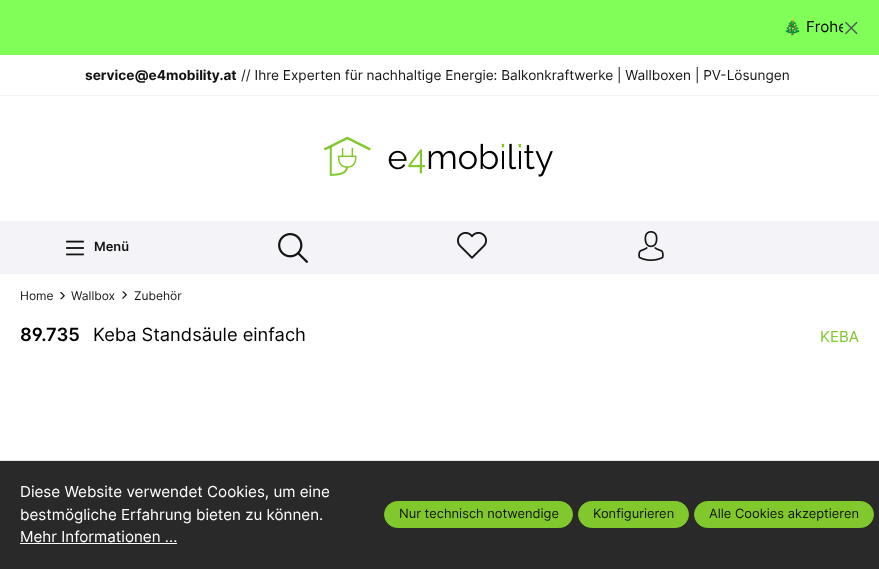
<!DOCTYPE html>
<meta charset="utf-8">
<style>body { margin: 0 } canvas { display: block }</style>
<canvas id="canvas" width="879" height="569"></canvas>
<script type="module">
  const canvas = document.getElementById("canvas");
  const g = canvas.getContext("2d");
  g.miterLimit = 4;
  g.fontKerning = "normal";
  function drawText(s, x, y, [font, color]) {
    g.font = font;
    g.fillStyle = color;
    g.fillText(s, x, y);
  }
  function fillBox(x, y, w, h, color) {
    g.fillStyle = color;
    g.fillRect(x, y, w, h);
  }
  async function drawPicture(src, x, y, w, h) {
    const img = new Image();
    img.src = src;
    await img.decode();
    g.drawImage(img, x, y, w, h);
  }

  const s1 = ["15.2px Noto Color Emoji", "#000000"];
  const s2 = ["15.2px Inter", "#000000"];
  const s3 = ["bold 13.65px Inter", "#131313"];
  const s4 = ["13.65px Inter", "#131313"];
  const s5 = ["600 12.9px Inter", "#131313"];
  const s6 = ["12px Inter", "#131313"];
  const s7 = ["600 18.25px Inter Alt", "#000000"];
  const s8 = ["18.25px Inter", "#000000"];
  const s9 = ["15.2px Inter", "#80C82B"];
  const s10 = ["15.2px Inter", "#FFFFFF"];
  const s11 = ["12.9px Inter", "#131313"];

  fillBox(0, 0, 879, 569, "#FFFFFF");
  fillBox(0, 0, 879, 55, "#7FFF58");
  drawText("🎄", 783, 32, s1);
  g.save();
  g.beginPath();
  g.rect(16, 16, 827, 23);
  g.clip();
  drawText("Frohe", 806, 32, s2);
  g.restore();
  await drawPicture("pic1.png", 845, 21, 13, 14);
  fillBox(0, 95, 879, 1, "#F4F3F7");
  drawText("service@e4mobility.at", 85, 80, s3);
  drawText("// Ihre Experten für nachhaltige Energie: Balkonkraftwerke | Wallboxen | PV-Lösungen", 241, 80, s4);
  await drawPicture("pic2.png", 323, 136, 230, 41);
  fillBox(0, 221, 879, 53, "#F4F3F7");
  await drawPicture("pic3.png", 65, 240, 20, 16);
  drawText("Menü", 94, 251, s5);
  await drawPicture("pic4.png", 278, 233, 30, 30);
  await drawPicture("pic5.png", 457, 231, 30, 28);
  await drawPicture("pic6.png", 638, 231, 26, 30);
  drawText("Home", 20, 300, s6);
  await drawPicture("pic7.png", 60, 292, 5, 8);
  drawText("Wallbox", 71, 300, s6);
  await drawPicture("pic8.png", 122, 291, 5, 8);
  drawText("Zubehör", 134, 300, s6);
  drawText("89.735", 20, 341, s7);
  drawText("Keba Standsäule einfach", 93, 341, s8);
  drawText("KEBA", 820, 342, s9);
  fillBox(0, 461, 879, 108, "#292929");
  fillBox(0, 460, 879, 1, "#E6E6E6");
  drawText("Diese Website verwendet Cookies, um eine", 20, 497, s10);
  drawText("bestmögliche Erfahrung bieten zu können.", 20, 520, s10);
  drawText("Mehr Informationen ...", 20, 542, s10);
  fillBox(20, 543, 157, 1, "#FFFFFF");
  g.fillStyle = "#80C82B";
  g.beginPath();
  g.roundRect(384.5, 501.5, 188, 26, 13);
  g.fill();
  g.strokeStyle = "#80C82B";
  g.stroke();
  drawText("Nur technisch notwendige", 399, 518, s11);
  g.fillStyle = "#80C82B";
  g.beginPath();
  g.roundRect(578.5, 501.5, 110, 26, 13);
  g.fill();
  g.stroke();
  drawText("Konfigurieren", 593, 518, s11);
  g.fillStyle = "#80C82B";
  g.beginPath();
  g.roundRect(694.5, 501.5, 179, 26, 13);
  g.fill();
  g.stroke();
  drawText("Alle Cookies akzeptieren", 709, 518, s11);
</script>
